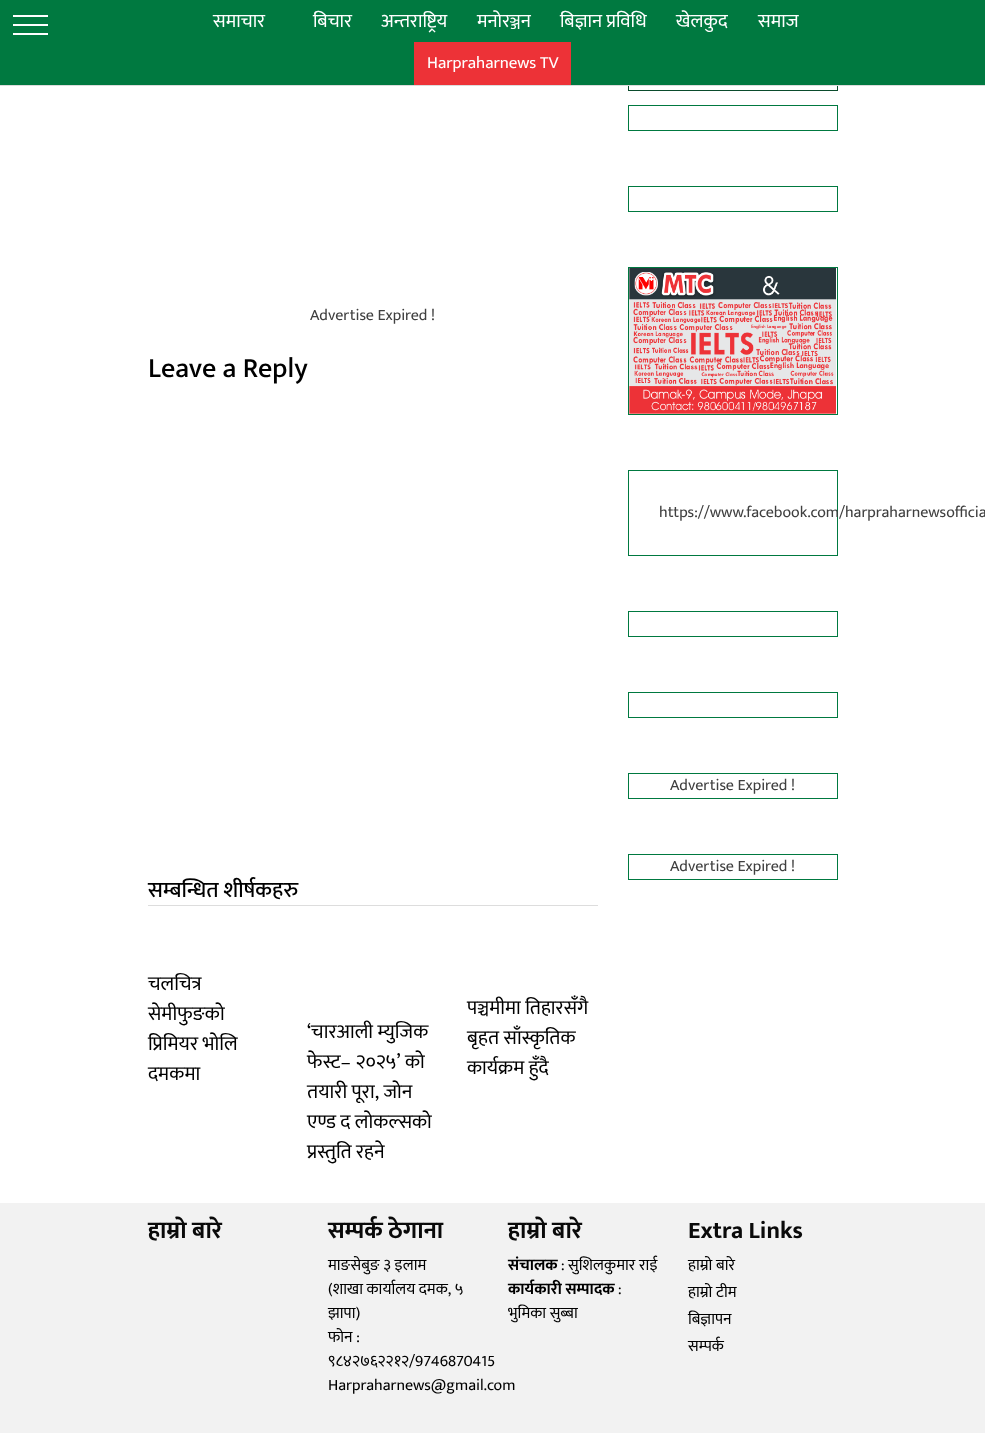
<!DOCTYPE html>
<meta charset="utf-8">
<style>body { margin: 0 } canvas { display: block }</style>
<canvas id="canvas" width="985" height="1433"></canvas>
<script type="module">
  const canvas = document.getElementById("canvas");
  const g = canvas.getContext("2d");
  g.miterLimit = 4;
  g.fontKerning = "normal";
  function drawText(s, x, y, [font, color]) {
    g.font = font;
    g.fillStyle = color;
    g.fillText(s, x, y);
  }
  function fillBox(x, y, w, h, color) {
    g.fillStyle = color;
    g.fillRect(x, y, w, h);
  }
  async function drawPicture(src, x, y, w, h) {
    const img = new Image();
    img.src = src;
    await img.decode();
    g.drawImage(img, x, y, w, h);
  }

  const s1 = ["19px Mukta", "#FFFFFF"];
  const s2 = ["17px Mukta", "#FFFFFF"];
  const s3 = ["16px Mukta", "#404040"];
  const s4 = ["500 28px Mukta", "#000000"];
  const s5 = ["500 22px Mukta", "#000000"];
  const s6 = ["20px Mukta", "#000000"];
  const s7 = ["bold 24px Mukta", "#0A0A0A"];
  const s8 = ["16px Mukta", "#000000"];
  const s9 = ["bold 16px Mukta", "#000000"];

  fillBox(0, 0, 985, 1433, "#FFFFFF");
  g.strokeStyle = "#0A4B2C";
  g.strokeRect(628.5, -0.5, 209, 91);
  g.fillStyle = "#DCDCDC";
  g.filter = "blur(0.5px)";
  g.beginPath();
  g.rect(0, 1, 985, 85);
  g.fill();
  g.filter = "none";
  fillBox(0, 0, 985, 85, "#007940");
  fillBox(13, 15, 35, 2, "#FFFFFF");
  fillBox(13, 24, 35, 2, "#FFFFFF");
  fillBox(13, 33, 35, 2, "#FFFFFF");
  drawText("समाचार", 213, 27, s1);
  drawText("बिचार", 313, 27, s1);
  drawText("अन्तराष्ट्रिय", 381, 27, s1);
  drawText("मनोरञ्जन", 477, 27, s1);
  drawText("बिज्ञान प्रविधि", 560, 27, s1);
  drawText("खेलकुद", 676, 27, s1);
  drawText("समाज", 758, 27, s1);
  fillBox(414, 42, 157, 43, "#ED3237");
  drawText("Harpraharnews TV", 427, 68, s2);
  drawText("Advertise Expired !", 310, 320, s3);
  drawText("Leave a Reply", 148, 377, s4);
  fillBox(148, 905, 450, 1, "#DDDDDD");
  drawText("सम्बन्धित शीर्षकहरु", 148, 897, s5);
  drawText("चलचित्र", 148, 990, s6);
  drawText("सेमीफुङको", 148, 1020, s6);
  drawText("प्रिमियर भोलि", 148, 1050, s6);
  drawText("दमकमा", 148, 1080, s6);
  drawText("‘चारआली म्युजिक", 307, 1038, s6);
  drawText("फेस्ट– २०२५’ को", 307, 1068, s6);
  drawText("तयारी पूरा, जोन", 307, 1098, s6);
  drawText("एण्ड द लोकल्सको", 307, 1128, s6);
  drawText("प्रस्तुति रहने", 307, 1158, s6);
  drawText("पञ्चमीमा तिहारसँगै", 467, 1014, s6);
  drawText("बृहत साँस्कृतिक", 467, 1044, s6);
  drawText("कार्यक्रम हुँदै", 467, 1074, s6);
  g.strokeStyle = "#007940";
  g.strokeRect(628.5, 105.5, 209, 25);
  g.strokeRect(628.5, 186.5, 209, 25);
  g.strokeRect(628.5, 267.5, 209, 147);
  await drawPicture("pic1.png", 629, 268, 207, 146);
  g.strokeRect(628.5, 470.5, 209, 85);
  drawText("https://www.facebook.com/harpraharnewsofficia", 659, 517, s3);
  g.strokeRect(628.5, 611.5, 209, 25);
  g.strokeRect(628.5, 692.5, 209, 25);
  g.strokeRect(628.5, 773.5, 209, 25);
  drawText("Advertise Expired !", 670, 790, s3);
  g.strokeRect(628.5, 854.5, 209, 25);
  drawText("Advertise Expired !", 670, 871, s3);
  fillBox(0, 1203, 985, 230, "#F2F2F2");
  drawText("हाम्रो बारे", 148, 1238, s7);
  drawText("सम्पर्क ठेगाना", 328, 1238, s7);
  drawText("माङसेबुङ ३ इलाम", 328, 1270, s8);
  drawText("(शाखा कार्यालय दमक, ५", 328, 1294, s8);
  drawText("झापा)", 328, 1318, s8);
  drawText("फोन :", 328, 1342, s8);
  drawText("९८४२७६२२१२/9746870415", 328, 1366, s8);
  drawText("Harpraharnews@gmail.com", 328, 1390, s8);
  drawText("हाम्रो बारे", 508, 1238, s7);
  drawText("संचालक", 508, 1270, s9);
  drawText(": सुशिलकुमार राई", 561, 1270, s8);
  drawText("कार्यकारी सम्पादक", 508, 1294, s9);
  drawText(":", 618, 1294, s8);
  drawText("भुमिका सुब्बा", 508, 1318, s8);
  drawText("Extra Links", 688, 1238, s7);
  drawText("हाम्रो बारे", 688, 1270, s8);
  drawText("हाम्रो टीम", 688, 1297, s8);
  drawText("बिज्ञापन", 688, 1324, s8);
  drawText("सम्पर्क", 688, 1351, s8);
</script>
